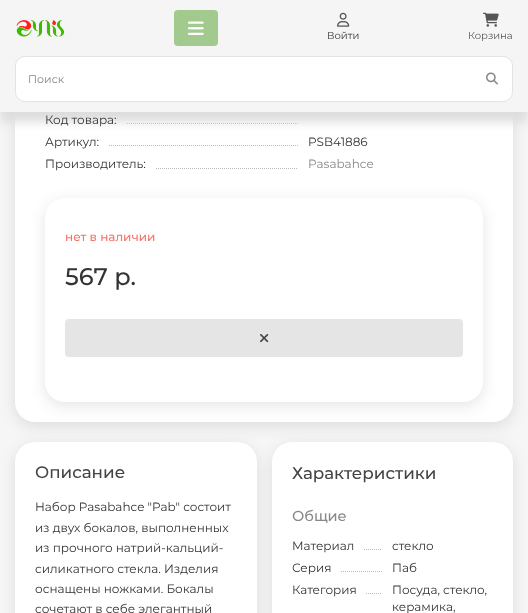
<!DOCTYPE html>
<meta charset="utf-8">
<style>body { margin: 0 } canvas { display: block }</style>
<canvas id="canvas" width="528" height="613"></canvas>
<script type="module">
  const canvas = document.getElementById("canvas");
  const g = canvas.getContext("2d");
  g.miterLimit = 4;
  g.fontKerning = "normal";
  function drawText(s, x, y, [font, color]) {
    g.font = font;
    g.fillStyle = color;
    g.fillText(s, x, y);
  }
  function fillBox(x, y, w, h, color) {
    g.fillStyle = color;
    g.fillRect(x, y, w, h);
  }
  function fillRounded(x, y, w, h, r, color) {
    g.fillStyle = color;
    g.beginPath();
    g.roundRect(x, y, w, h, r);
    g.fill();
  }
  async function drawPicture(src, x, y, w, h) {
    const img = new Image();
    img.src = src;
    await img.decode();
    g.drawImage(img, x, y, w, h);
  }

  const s1 = ["10px Montserrat", "#333333"];
  const s2 = ["10px Montserrat", "#555555"];
  const s3 = ["11px Montserrat", "#888888"];
  const s4 = ["12px Montserrat", "#333333"];
  const s5 = ["12px Montserrat", "#888888"];
  const s6 = ["500 12px Montserrat", "#F2766B"];
  const s7 = ["500 24px Montserrat", "#333333"];
  const s8 = ["500 16.75px Montserrat", "#444444"];
  const s9 = ["500 14.5px Montserrat", "#888888"];

  fillBox(0, 0, 528, 613, "#F6F6F6");
  g.fillStyle = "rgba(0, 0, 0, 0.1)";
  g.filter = "blur(7.5px)";
  g.beginPath();
  g.roundRect(15, 446, 242, 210, 20);
  g.fill();
  g.filter = "none";
  fillRounded(15, 442, 242, 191, 20, "#FFFFFF");
  g.fillStyle = "rgba(0, 0, 0, 0.1)";
  g.filter = "blur(7.5px)";
  g.beginPath();
  g.roundRect(272, 446, 241, 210, 20);
  g.fill();
  g.filter = "none";
  fillRounded(272, 442, 241, 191, 20, "#FFFFFF");
  g.fillStyle = "rgba(0, 0, 0, 0.1)";
  g.filter = "blur(7.5px)";
  g.beginPath();
  g.roundRect(15, -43, 498, 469, 20);
  g.fill();
  g.filter = "none";
  fillRounded(15, -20, 498, 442, 20, "#FFFFFF");
  g.beginPath();
  g.moveTo(127, 123.5);
  g.lineTo(298, 123.5);
  g.strokeStyle = "#BBBBBB";
  g.setLineDash([1, 1]);
  g.stroke();
  g.fillStyle = "#DDDDDD";
  g.filter = "blur(5px)";
  g.beginPath();
  g.rect(0, 10, 528, 112);
  g.fill();
  g.filter = "none";
  fillBox(0, 0, 528, 112, "#F5F5F5");
  await drawPicture("pic1.png", 16, 20, 49, 17);
  fillRounded(174, 10, 44, 36, 4, "#A2C98E");
  await drawPicture("pic2.png", 188, 21, 16, 14);
  await drawPicture("pic3.png", 337, 12, 13, 15);
  drawText("Войти", 327, 39, s1);
  await drawPicture("pic4.png", 483, 12, 16, 15);
  drawText("Корзина", 468, 39, s2);
  g.fillStyle = "#FFFFFF";
  g.beginPath();
  g.roundRect(15.5, 56.5, 497, 45, 9.5);
  g.fill();
  g.strokeStyle = "#E3E3E3";
  g.setLineDash([]);
  g.stroke();
  drawText("Поиск", 28, 83, s3);
  await drawPicture("pic5.png", 486, 72, 12, 13);
  drawText("Код товара:", 45, 124, s4);
  drawText("Артикул:", 45, 146, s4);
  g.beginPath();
  g.moveTo(109, 145.5);
  g.lineTo(298, 145.5);
  g.strokeStyle = "#BBBBBB";
  g.setLineDash([1, 1]);
  g.stroke();
  drawText("PSB41886", 308, 146, s4);
  drawText("Производитель:", 45, 168, s4);
  g.beginPath();
  g.moveTo(156, 168.5);
  g.lineTo(298, 168.5);
  g.stroke();
  drawText("Pasabahce", 308, 168, s5);
  g.fillStyle = "rgba(0, 0, 0, 0.1)";
  g.filter = "blur(7.5px)";
  g.beginPath();
  g.roundRect(45, 202, 438, 204, 20);
  g.fill();
  g.filter = "none";
  fillRounded(45, 198, 438, 204, 20, "#FFFFFF");
  drawText("нет в наличии", 65, 241, s6);
  drawText("567 р.", 65, 285, s7);
  fillRounded(65, 319, 398, 38, 4, "#E5E5E5");
  await drawPicture("pic6.png", 260, 334, 9, 9);
  drawText("Описание", 35, 478, s8);
  drawText("Набор Pasabahce \"Pab\" состоит", 35, 511, s4);
  drawText("из двух бокалов, выполненных", 35, 532, s4);
  drawText("из прочного натрий-кальций-", 35, 552, s4);
  drawText("силикатного стекла. Изделия", 35, 573, s4);
  drawText("оснащены ножками. Бокалы", 35, 593, s4);
  drawText("сочетают в себе элегантный", 35, 613, s4);
  drawText("Характеристики", 292, 479, s8);
  drawText("Общие", 292, 521, s9);
  drawText("Материал", 292, 550, s4);
  g.beginPath();
  g.moveTo(364, 549.5);
  g.lineTo(382, 549.5);
  g.stroke();
  drawText("стекло", 392, 550, s4);
  drawText("Серия", 292, 572, s4);
  g.beginPath();
  g.moveTo(341, 571.5);
  g.lineTo(382, 571.5);
  g.stroke();
  drawText("Паб", 392, 572, s4);
  drawText("Категория", 292, 594, s4);
  g.beginPath();
  g.moveTo(366, 593.5);
  g.lineTo(382, 593.5);
  g.stroke();
  drawText("Посуда, стекло,", 392, 594, s4);
  drawText("керамика,", 392, 611, s4);
</script>
